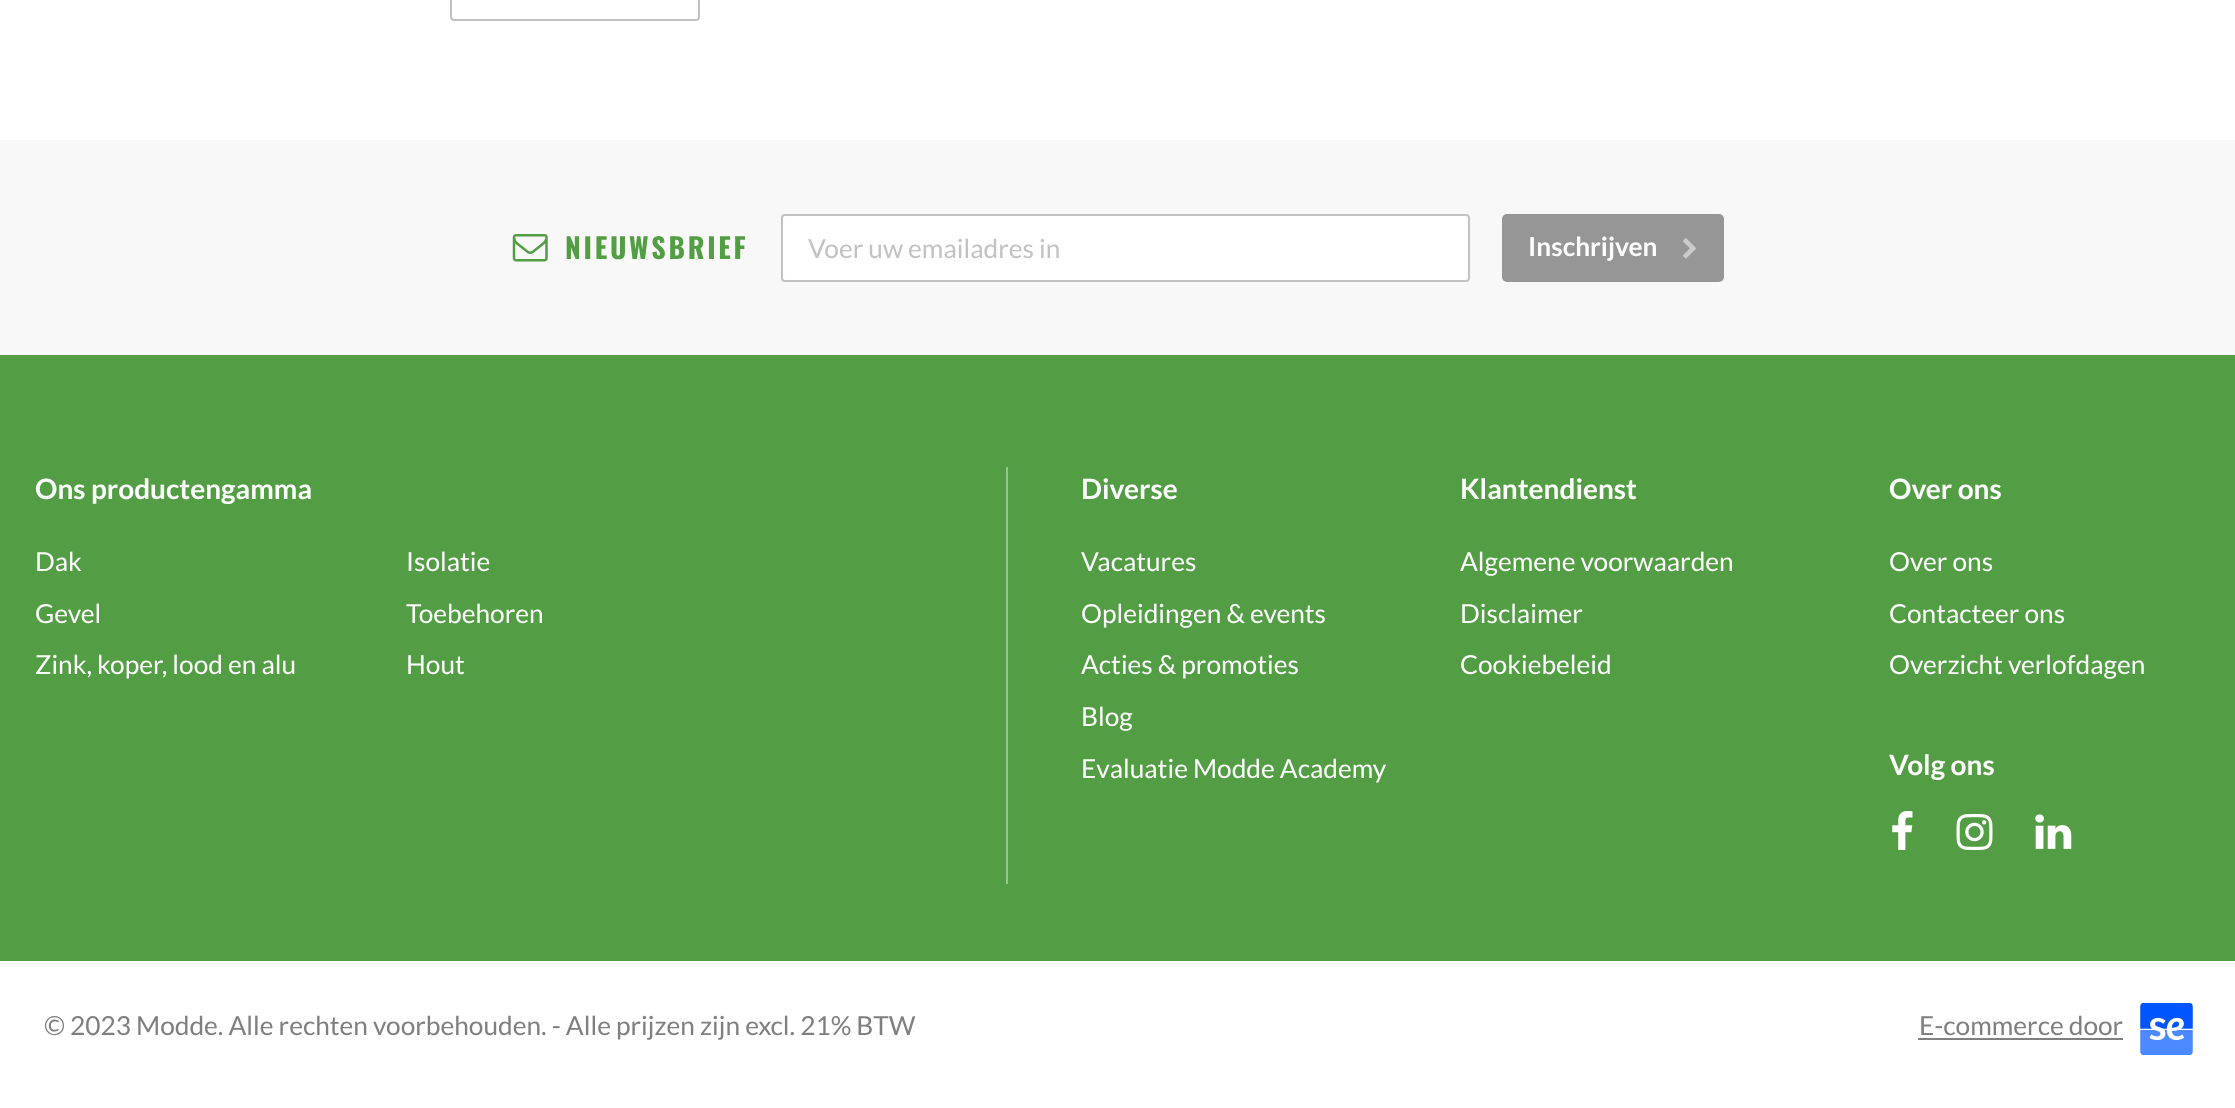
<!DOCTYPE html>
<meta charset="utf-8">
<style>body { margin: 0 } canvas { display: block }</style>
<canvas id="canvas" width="2235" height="1108"></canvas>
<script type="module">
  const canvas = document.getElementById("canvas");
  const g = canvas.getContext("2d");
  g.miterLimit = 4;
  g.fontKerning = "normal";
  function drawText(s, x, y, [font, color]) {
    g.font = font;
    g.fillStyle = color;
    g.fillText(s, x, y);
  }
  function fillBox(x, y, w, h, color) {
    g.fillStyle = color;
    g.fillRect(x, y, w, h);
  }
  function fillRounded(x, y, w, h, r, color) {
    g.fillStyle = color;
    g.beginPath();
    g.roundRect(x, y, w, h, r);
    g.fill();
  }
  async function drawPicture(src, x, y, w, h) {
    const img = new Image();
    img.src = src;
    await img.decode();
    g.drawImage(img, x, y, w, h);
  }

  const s1 = ["bold 28px Oswald", "#539E44"];
  const s2 = ["26.25px Lato", "#C2C2C2"];
  const s3 = ["bold 26.25px Lato", "#FCFCFC"];
  const s4 = ["bold 28px Lato", "#FCFCFC"];
  const s5 = ["26.25px Lato", "#FCFCFC"];
  const s6 = ["26.25px Lato", "#7F7F7F"];

  fillBox(0, 0, 2235, 1108, "#FFFFFF");
  g.beginPath();
  g.roundRect(451, -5, 248, 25, 3);
  g.strokeStyle = "#C2C2C2";
  g.lineWidth = 2;
  g.stroke();
  fillBox(0, 140, 2235, 215, "#F8F8F8");
  await drawPicture("pic1.png", 512, 234, 36, 28);
  g.letterSpacing = "2.75px";
  drawText("NIEUWSBRIEF", 565, 259, s1);
  g.fillStyle = "#FFFFFF";
  g.beginPath();
  g.roundRect(782, 215, 687, 66, 3);
  g.fill();
  g.stroke();
  g.letterSpacing = "0px";
  drawText("Voer uw emailadres in", 808, 258, s2);
  fillRounded(1502, 214, 222, 68, 5, "#969696");
  drawText("Inschrijven", 1528, 256, s3);
  await drawPicture("pic2.png", 1683, 238, 13, 21);
  fillBox(0, 355, 2235, 606, "#539E44");
  drawText("Ons productengamma", 35, 499, s4);
  drawText("Dak", 35, 571, s5);
  drawText("Gevel", 35, 623, s5);
  drawText("Zink, koper, lood en alu", 35, 674, s5);
  drawText("Isolatie", 406, 571, s5);
  drawText("Toebehoren", 406, 623, s5);
  drawText("Hout", 406, 674, s5);
  fillBox(1006, 467, 2, 417, "#98C58F");
  drawText("Diverse", 1081, 499, s4);
  drawText("Vacatures", 1081, 571, s5);
  drawText("Opleidingen & events", 1081, 623, s5);
  drawText("Acties & promoties", 1081, 674, s5);
  drawText("Blog", 1081, 726, s5);
  drawText("Evaluatie Modde Academy", 1081, 778, s5);
  drawText("Klantendienst", 1460, 499, s4);
  drawText("Algemene voorwaarden", 1460, 571, s5);
  drawText("Disclaimer", 1460, 623, s5);
  drawText("Cookiebeleid", 1460, 674, s5);
  drawText("Over ons", 1889, 499, s4);
  drawText("Over ons", 1889, 571, s5);
  drawText("Contacteer ons", 1889, 623, s5);
  drawText("Overzicht verlofdagen", 1889, 674, s5);
  drawText("Volg ons", 1889, 775, s4);
  await drawPicture("pic3.png", 1892, 811, 21, 39);
  await drawPicture("pic4.png", 1956, 814, 37, 36);
  await drawPicture("pic5.png", 2035, 814, 37, 35);
  drawText("© 2023 Modde. Alle rechten voorbehouden. - Alle prijzen zijn excl. 21% BTW", 44, 1035, s6);
  drawText("E-commerce door", 1919, 1035, s6);
  fillBox(1918, 1038, 205, 2, "#7F7F7F");
  await drawPicture("pic6.png", 2140, 1003, 53, 52);
</script>
